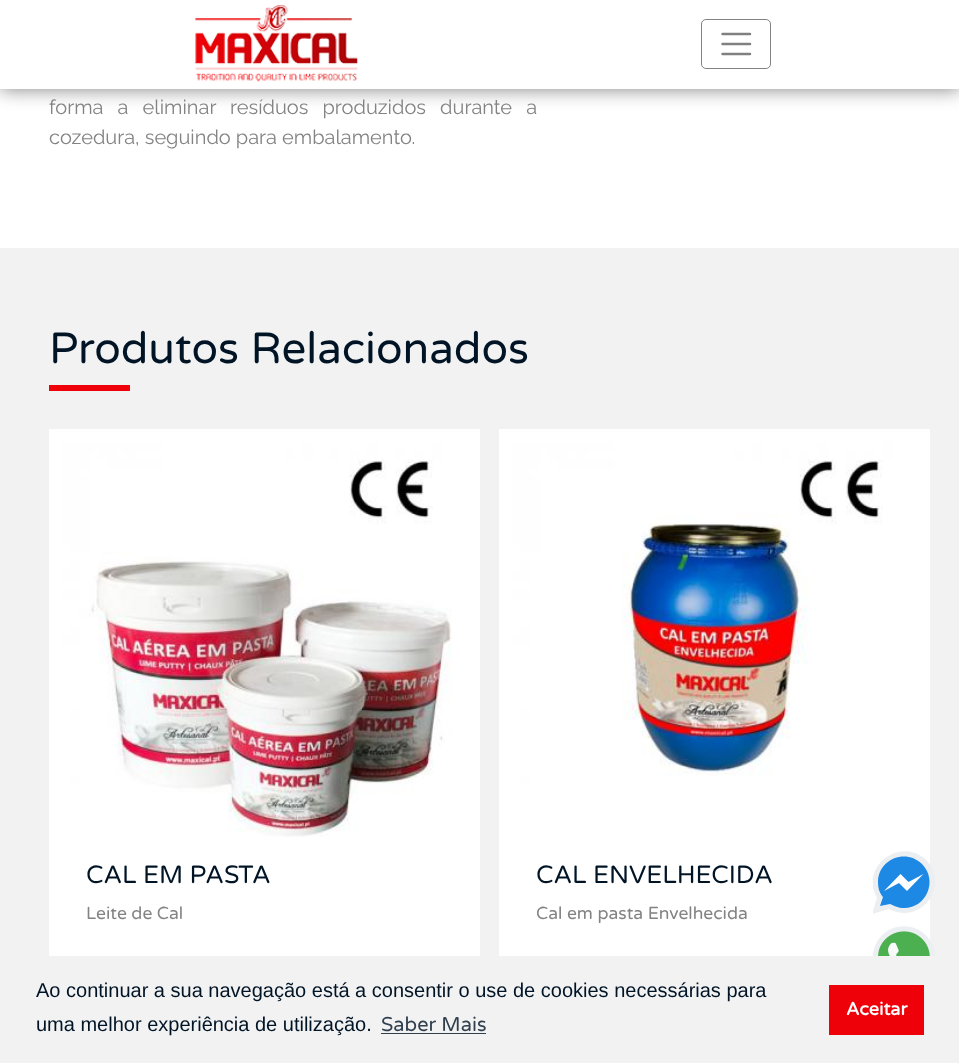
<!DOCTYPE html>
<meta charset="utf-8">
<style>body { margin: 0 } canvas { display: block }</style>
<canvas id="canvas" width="959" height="1063"></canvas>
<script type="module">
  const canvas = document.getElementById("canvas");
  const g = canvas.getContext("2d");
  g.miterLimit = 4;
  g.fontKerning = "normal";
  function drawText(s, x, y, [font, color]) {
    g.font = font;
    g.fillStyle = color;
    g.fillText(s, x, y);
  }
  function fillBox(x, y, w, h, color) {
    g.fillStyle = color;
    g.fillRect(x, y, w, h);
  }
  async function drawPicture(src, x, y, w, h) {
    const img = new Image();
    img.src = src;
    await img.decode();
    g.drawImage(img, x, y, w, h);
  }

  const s1 = ["20px Raleway", "#838383"];
  const s2 = ["43.75px Varela Round", "#001426"];
  const s3 = ["25px Varela Round", "#001426"];
  const s4 = ["17.5px Varela Round", "#838383"];
  const s5 = ["20px Liberation Sans", "#001426"];
  const s6 = ["20px Varela Round", "#30404F"];
  const s7 = ["bold 18px Varela Round", "#FFFFFF"];

  fillBox(0, 0, 959, 1063, "#FFFFFF");
  g.fillStyle = "rgba(0, 0, 0, 0.5)";
  g.filter = "blur(9.5px)";
  g.beginPath();
  g.rect(0, 0, 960, 89);
  g.fill();
  g.filter = "none";
  fillBox(0, 0, 959, 89, "#FFFFFF");
  await drawPicture("pic1.png", 195, 4, 163, 78);
  g.beginPath();
  g.roundRect(701.5, 19.5, 69, 49, 4.5);
  g.strokeStyle = "#838383";
  g.stroke();
  g.beginPath();
  g.moveTo(722.5, 34);
  g.lineTo(750, 34);
  g.moveTo(722.5, 44);
  g.lineTo(750, 44);
  g.moveTo(722.5, 54);
  g.lineTo(750, 54);
  g.strokeStyle = "#808080";
  g.lineWidth = 2.5;
  g.lineCap = "round";
  g.stroke();
  g.wordSpacing = "9px";
  drawText("forma a eliminar resíduos produzidos durante a", 49, 114, s1);
  g.wordSpacing = "0px";
  drawText("cozedura, seguindo para embalamento.", 49, 144, s1);
  fillBox(0, 248, 959, 708, "#F2F2F2");
  drawText("Produtos Relacionados", 49, 363, s2);
  fillBox(49, 385, 81, 6, "#EE0109");
  g.strokeStyle = "#FFFFFF";
  g.lineWidth = 13;
  g.strokeRect(55.5, 435.5, 418, 522);
  fillBox(62, 798, 405, 141, "#FFFFFF");
  await drawPicture("pic2.png", 62, 442, 405, 395);
  drawText("CAL EM PASTA", 86, 883, s3);
  drawText("Leite de Cal", 86, 919, s4);
  g.strokeRect(505.5, 435.5, 418, 522);
  await drawPicture("pic3.png", 512, 442, 405, 356);
  fillBox(512, 798, 405, 153, "#FFFFFF");
  drawText("CAL ENVELHECIDA", 536, 883, s3);
  drawText("Cal em pasta Envelhecida", 536, 919, s4);
  g.strokeRect(55.5, 945.5, 418, 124);
  g.save();
  g.beginPath();
  g.rect(873, 851, 62, 63);
  g.clip();
  g.fillStyle = "#ECEFF1";
  g.beginPath();
  g.moveTo(926, 860);
  g.bezierCurveTo(901, 836, 859, 866, 877, 898);
  g.lineTo(872, 914);
  g.lineTo(889, 909);
  g.bezierCurveTo(919, 926, 952, 886, 926, 860);
  g.closePath();
  g.fill();
  g.restore();
  g.fillStyle = "#1E88E5";
  g.beginPath();
  g.moveTo(904, 908);
  g.bezierCurveTo(898, 908, 895, 906, 890, 904);
  g.lineTo(880, 906);
  g.lineTo(883, 897);
  g.lineTo(882, 896);
  g.bezierCurveTo(879, 892, 878, 887, 878, 882);
  g.bezierCurveTo(878, 859, 906, 848, 922, 864);
  g.bezierCurveTo(938, 880, 927, 908, 904, 908);
  g.closePath();
  g.fill();
  g.fillStyle = "#FFFFFF";
  g.beginPath();
  g.moveTo(907, 891);
  g.lineTo(899, 883);
  g.lineTo(884, 891);
  g.lineTo(900.5, 874);
  g.lineTo(908.5, 882);
  g.lineTo(923.5, 874);
  g.closePath();
  g.fill();
  await drawPicture("pic4.png", 873, 926, 62, 30);
  fillBox(0, 956, 959, 107, "#F2F2F2");
  drawText("Ao continuar a sua navegação está a consentir o use de cookies necessárias para", 36, 997, s5);
  drawText("uma melhor experiência de utilização.", 36, 1031, s5);
  drawText("Saber Mais", 381, 1031, s6);
  fillBox(381, 1033, 105, 1, "#30404F");
  fillBox(829, 985, 95, 50, "#EE0109");
  drawText("Aceitar", 846, 1015, s7);
</script>
